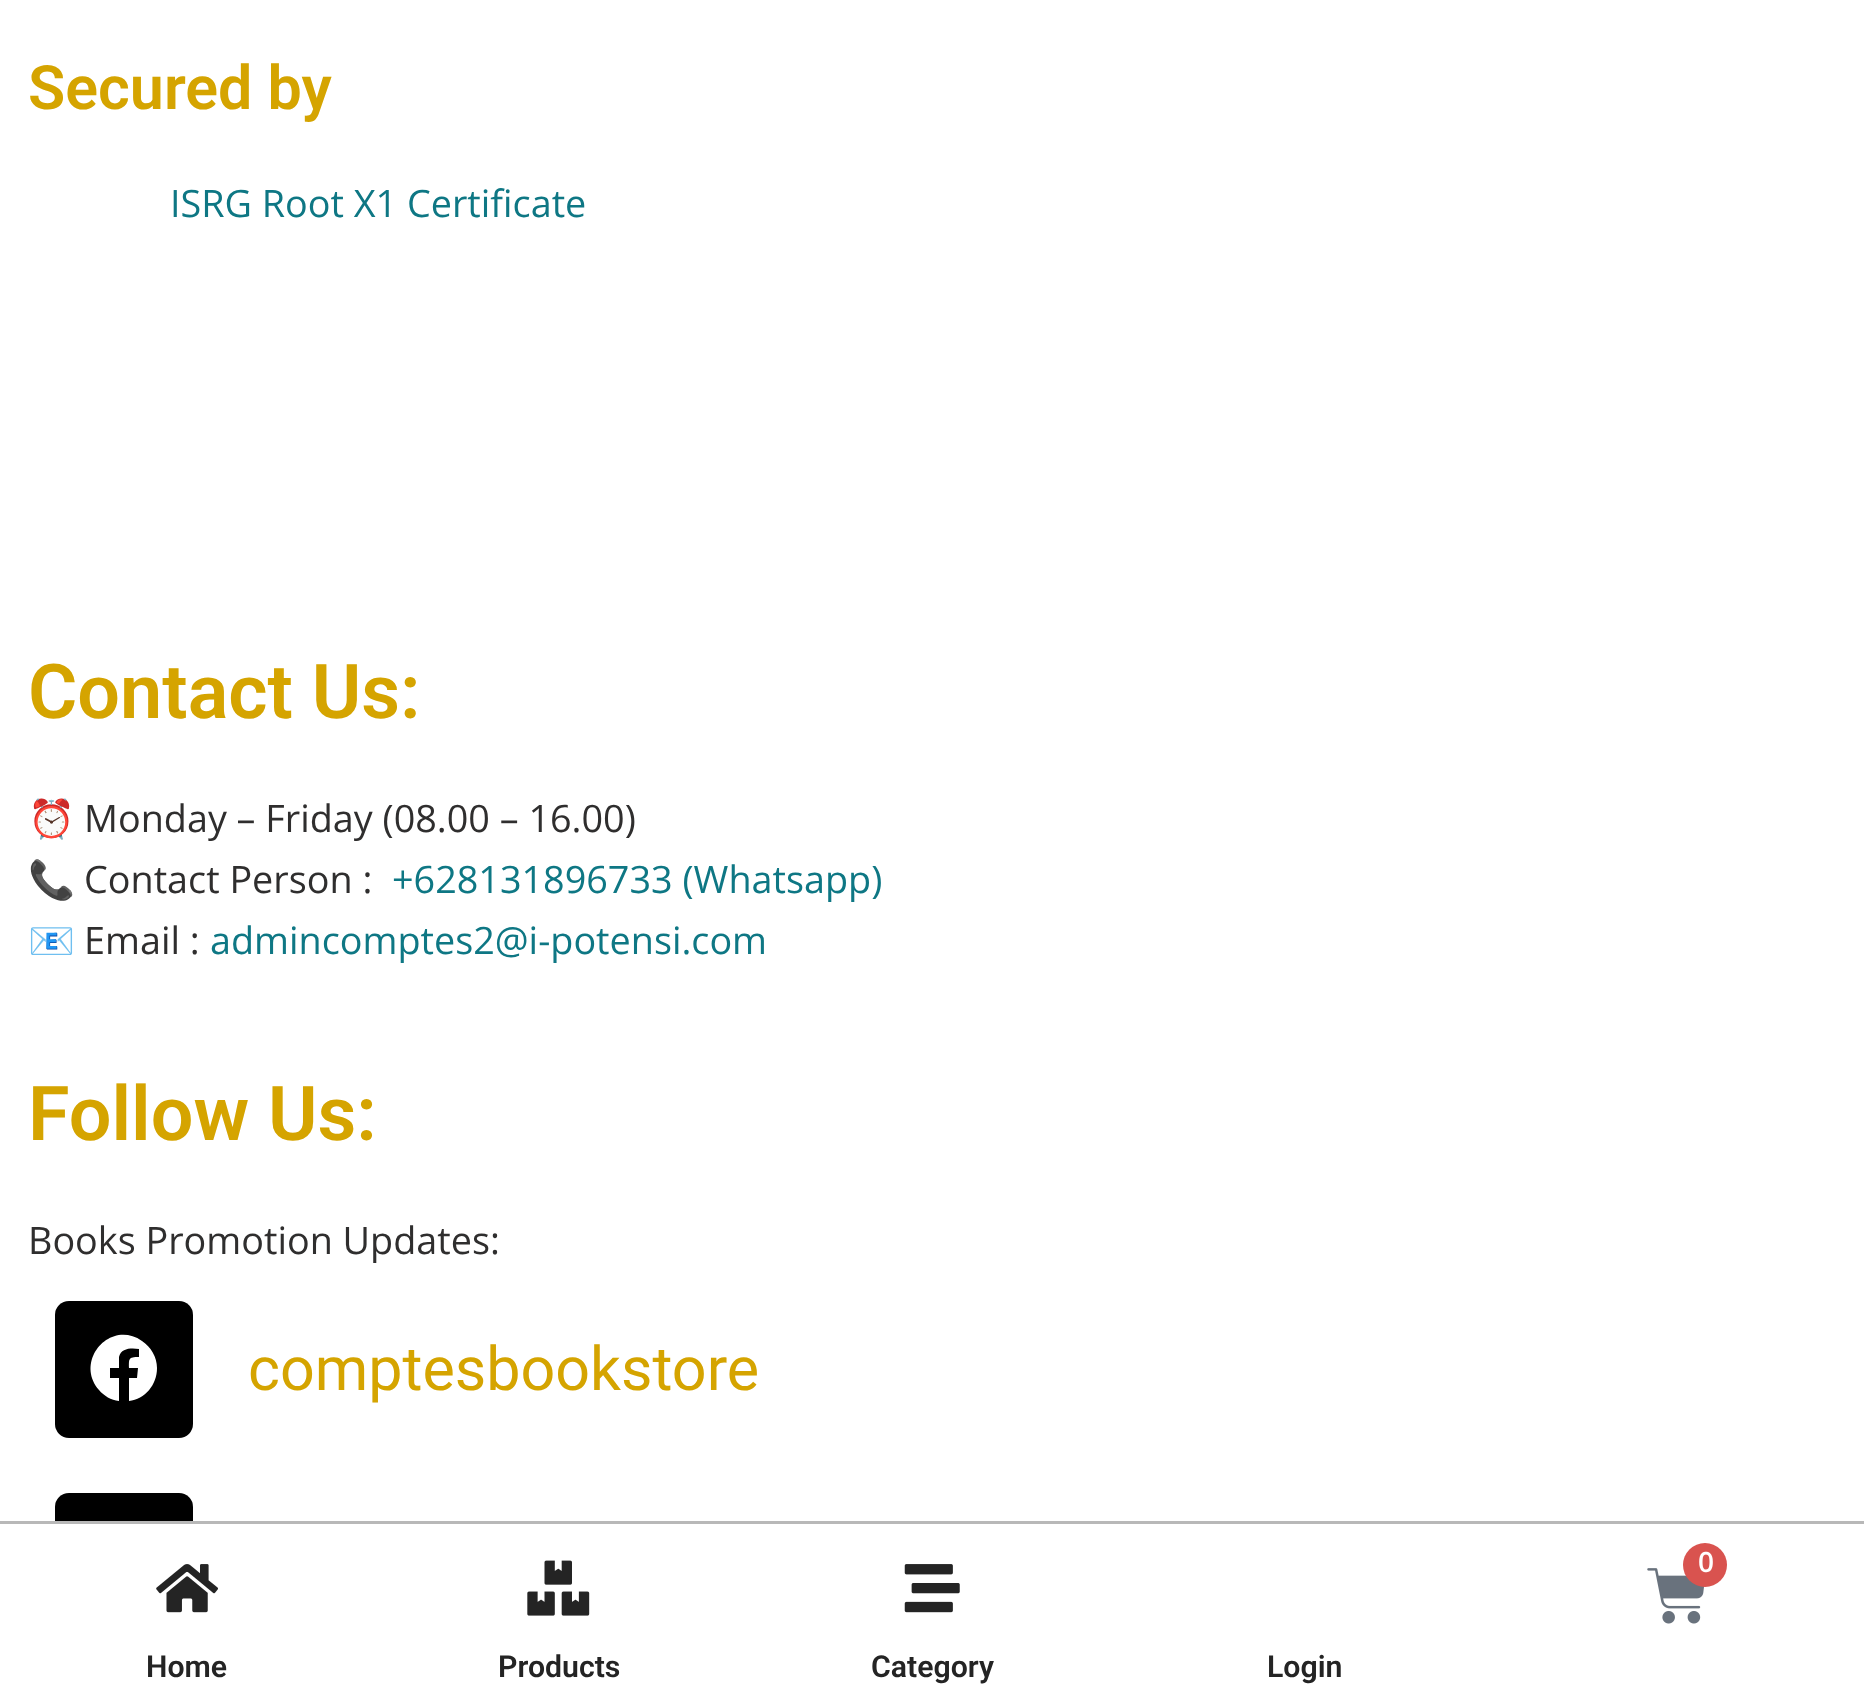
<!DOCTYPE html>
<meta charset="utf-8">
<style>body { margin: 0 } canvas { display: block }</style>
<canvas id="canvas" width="1864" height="1705"></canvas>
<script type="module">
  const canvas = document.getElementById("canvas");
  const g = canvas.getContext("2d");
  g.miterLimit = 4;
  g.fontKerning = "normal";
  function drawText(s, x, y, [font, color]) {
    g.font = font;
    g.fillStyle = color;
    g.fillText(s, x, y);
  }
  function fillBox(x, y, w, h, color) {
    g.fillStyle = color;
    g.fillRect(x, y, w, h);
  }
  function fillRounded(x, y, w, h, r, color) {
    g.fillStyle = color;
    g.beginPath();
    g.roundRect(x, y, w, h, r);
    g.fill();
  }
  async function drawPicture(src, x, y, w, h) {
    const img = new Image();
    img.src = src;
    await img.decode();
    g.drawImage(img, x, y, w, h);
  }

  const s1 = ["600 61px Roboto", "#D5A400"];
  const s2 = ["37.75px Open Sans", "#0E7784"];
  const s3 = ["600 75.5px Roboto", "#D5A400"];
  const s4 = ["37.75px Noto Color Emoji", "#2F2E2E"];
  const s5 = ["37.75px Open Sans", "#2F2E2E"];
  const s6 = ["61px Roboto", "#D5A400"];
  const s7 = ["600 28px Open Sans", "#FFFFFF"];
  const s8 = ["600 30.25px Roboto", "#242424"];

  fillBox(0, 0, 1864, 1705, "#FFFFFF");
  drawText("Secured by", 28, 109, s1);
  drawText("ISRG Root X1 Certificate", 170, 217, s2);
  drawText("Contact Us:", 28, 718, s3);
  drawText("⏰", 28, 832, s4);
  drawText("Monday – Friday (08.00 – 16.00)", 84, 832, s5);
  drawText("📞", 28, 893, s4);
  drawText("Contact Person :", 84, 893, s5);
  drawText("+628131896733 (Whatsapp)", 392, 893, s2);
  drawText("📧", 28, 954, s4);
  drawText("Email :", 84, 954, s5);
  drawText("admincomptes2@i-potensi.com", 210, 954, s2);
  drawText("Follow Us:", 28, 1140, s3);
  drawText("Books Promotion Updates:", 28, 1254, s5);
  fillRounded(55, 1301, 138, 137, 14, "#000000");
  g.fillStyle = "#FFFFFF";
  g.beginPath();
  g.moveTo(157, 1368);
  g.bezierCurveTo(157, 1385, 145, 1399, 129, 1401);
  g.lineTo(129, 1378);
  g.lineTo(137, 1378);
  g.lineTo(138, 1368);
  g.lineTo(129, 1368);
  g.bezierCurveTo(129, 1359, 128, 1357, 139, 1357);
  g.lineTo(139, 1349);
  g.bezierCurveTo(131, 1348, 121, 1348, 119, 1357);
  g.lineTo(119, 1368);
  g.lineTo(110, 1368);
  g.lineTo(110, 1378);
  g.lineTo(119, 1378);
  g.lineTo(119, 1401);
  g.bezierCurveTo(111, 1400, 104, 1396, 99, 1390);
  g.bezierCurveTo(74, 1361, 110, 1319, 142, 1341);
  g.bezierCurveTo(151, 1347, 157, 1357, 157, 1368);
  g.closePath();
  g.fill();
  drawText("comptesbookstore", 248, 1390, s6);
  fillRounded(55, 1493, 138, 138, 14, "#000000");
  fillBox(55, 1524, 138, 107, "#FFFFFF");
  fillBox(0, 1521, 1864, 3, "#B8B8B8");
  await drawPicture("pic1.png", 1647, 1568, 58, 56);
  g.fillStyle = "#D9534F";
  g.beginPath();
  g.arc(1705, 1565, 22, 0, Math.PI * 2);
  g.fill();
  drawText("0", 1698, 1572, s7);
  await drawPicture("pic2.png", 156, 1564, 62, 49);
  drawText("Home", 146, 1677, s8);
  await drawPicture("pic3.png", 527, 1560, 63, 56);
  drawText("Products", 498, 1677, s8);
  await drawPicture("pic4.png", 904, 1564, 56, 49);
  drawText("Category", 871, 1677, s8);
  drawText("Login", 1267, 1677, s8);
</script>
